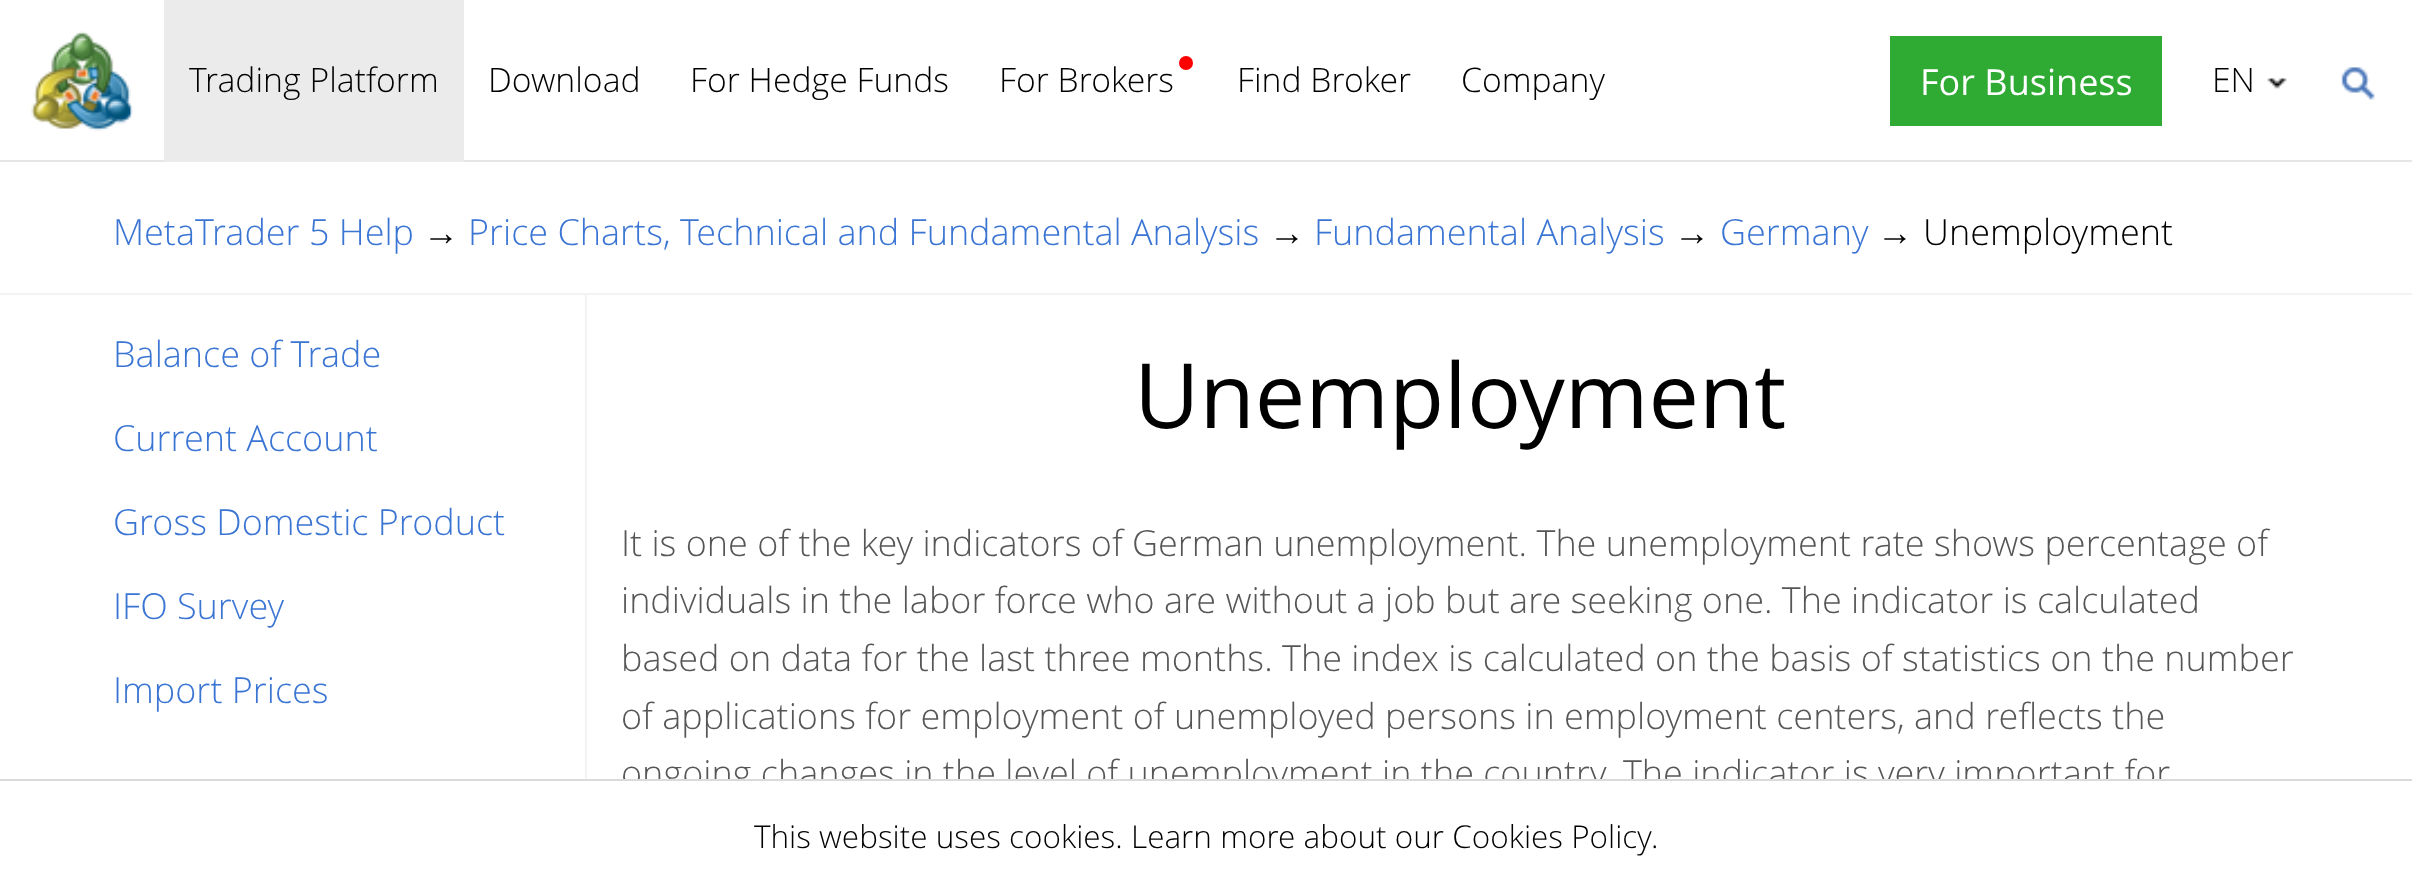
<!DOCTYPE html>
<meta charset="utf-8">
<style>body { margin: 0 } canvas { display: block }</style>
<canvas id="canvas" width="2412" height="892"></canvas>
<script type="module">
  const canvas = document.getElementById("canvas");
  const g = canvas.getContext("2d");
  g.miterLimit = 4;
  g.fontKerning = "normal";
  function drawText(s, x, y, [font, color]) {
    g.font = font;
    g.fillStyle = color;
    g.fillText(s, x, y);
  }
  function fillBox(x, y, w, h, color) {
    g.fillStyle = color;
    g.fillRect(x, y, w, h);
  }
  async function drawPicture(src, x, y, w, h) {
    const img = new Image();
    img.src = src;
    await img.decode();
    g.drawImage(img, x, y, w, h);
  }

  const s1 = ["300 33.75px Open Sans", "#000000"];
  const s2 = ["36px Open Sans", "#FFFFFF"];
  const s3 = ["300 36px Open Sans", "#3B75D3"];
  const s4 = ["36px Liberation Sans", "#000000"];
  const s5 = ["300 36px Open Sans", "#000000"];
  const s6 = ["90px Open Sans", "#000000"];
  const s7 = ["300 36px Open Sans", "#565656"];
  const s8 = ["300 31.5px Open Sans", "#000000"];

  fillBox(0, 0, 2412, 892, "#FFFFFF");
  fillBox(0, 160, 2412, 2, "#E6E6E6");
  await drawPicture("pic1.png", 31, 31, 102, 100);
  fillBox(164, 0, 300, 162, "#EBEBEB");
  drawText("Trading Platform", 189, 92, s1);
  drawText("Download", 488, 92, s1);
  drawText("For Hedge Funds", 690, 92, s1);
  g.fillStyle = "#FF0000";
  g.beginPath();
  g.arc(1186, 63, 7, 0, Math.PI * 2);
  g.fill();
  drawText("For Brokers", 999, 92, s1);
  drawText("Find Broker", 1237, 92, s1);
  drawText("Company", 1461, 92, s1);
  fillBox(1890, 36, 272, 90, "#2FAB34");
  drawText("For Business", 1920, 95, s2);
  drawText("EN", 2212, 92, s1);
  await drawPicture("pic2.png", 2267, 78, 20, 11);
  await drawPicture("pic3.png", 2341, 67, 34, 33);
  fillBox(0, 293, 2412, 2, "#F3F3F3");
  drawText("MetaTrader 5 Help", 113, 245, s3);
  drawText("→", 423, 245, s4);
  drawText("Price Charts, Technical and Fundamental Analysis", 468, 245, s3);
  drawText("→", 1269, 245, s4);
  drawText("Fundamental Analysis", 1314, 245, s3);
  drawText("→", 1674, 245, s4);
  drawText("Germany", 1720, 245, s3);
  drawText("→", 1877, 245, s4);
  drawText("Unemployment", 1923, 245, s5);
  drawText("Balance of Trade", 113, 367, s3);
  drawText("Current Account", 113, 451, s3);
  drawText("Gross Domestic Product", 113, 535, s3);
  drawText("IFO Survey", 113, 619, s3);
  drawText("Import Prices", 113, 703, s3);
  fillBox(585, 295, 2, 484, "#F3F3F3");
  drawText("Unemployment", 1134, 428, s6);
  drawText("It is one of the key indicators of German unemployment. The unemployment rate shows percentage of", 621, 556, s7);
  drawText("individuals in the labor force who are without a job but are seeking one. The indicator is calculated", 621, 613, s7);
  drawText("based on data for the last three months. The index is calculated on the basis of statistics on the number", 621, 671, s7);
  drawText("of applications for employment of unemployed persons in employment centers, and reflects the", 621, 729, s7);
  drawText("ongoing changes in the level of unemployment in the country. The indicator is very important for", 621, 786, s7);
  fillBox(623, 781, 1539, 14, "#FFFFFF");
  fillBox(0, 779, 2412, 2, "#DADADA");
  drawText("This website uses cookies. Learn more about our Cookies Policy", 754, 848, s8);
  drawText(".", 1651, 848, s8);
</script>
